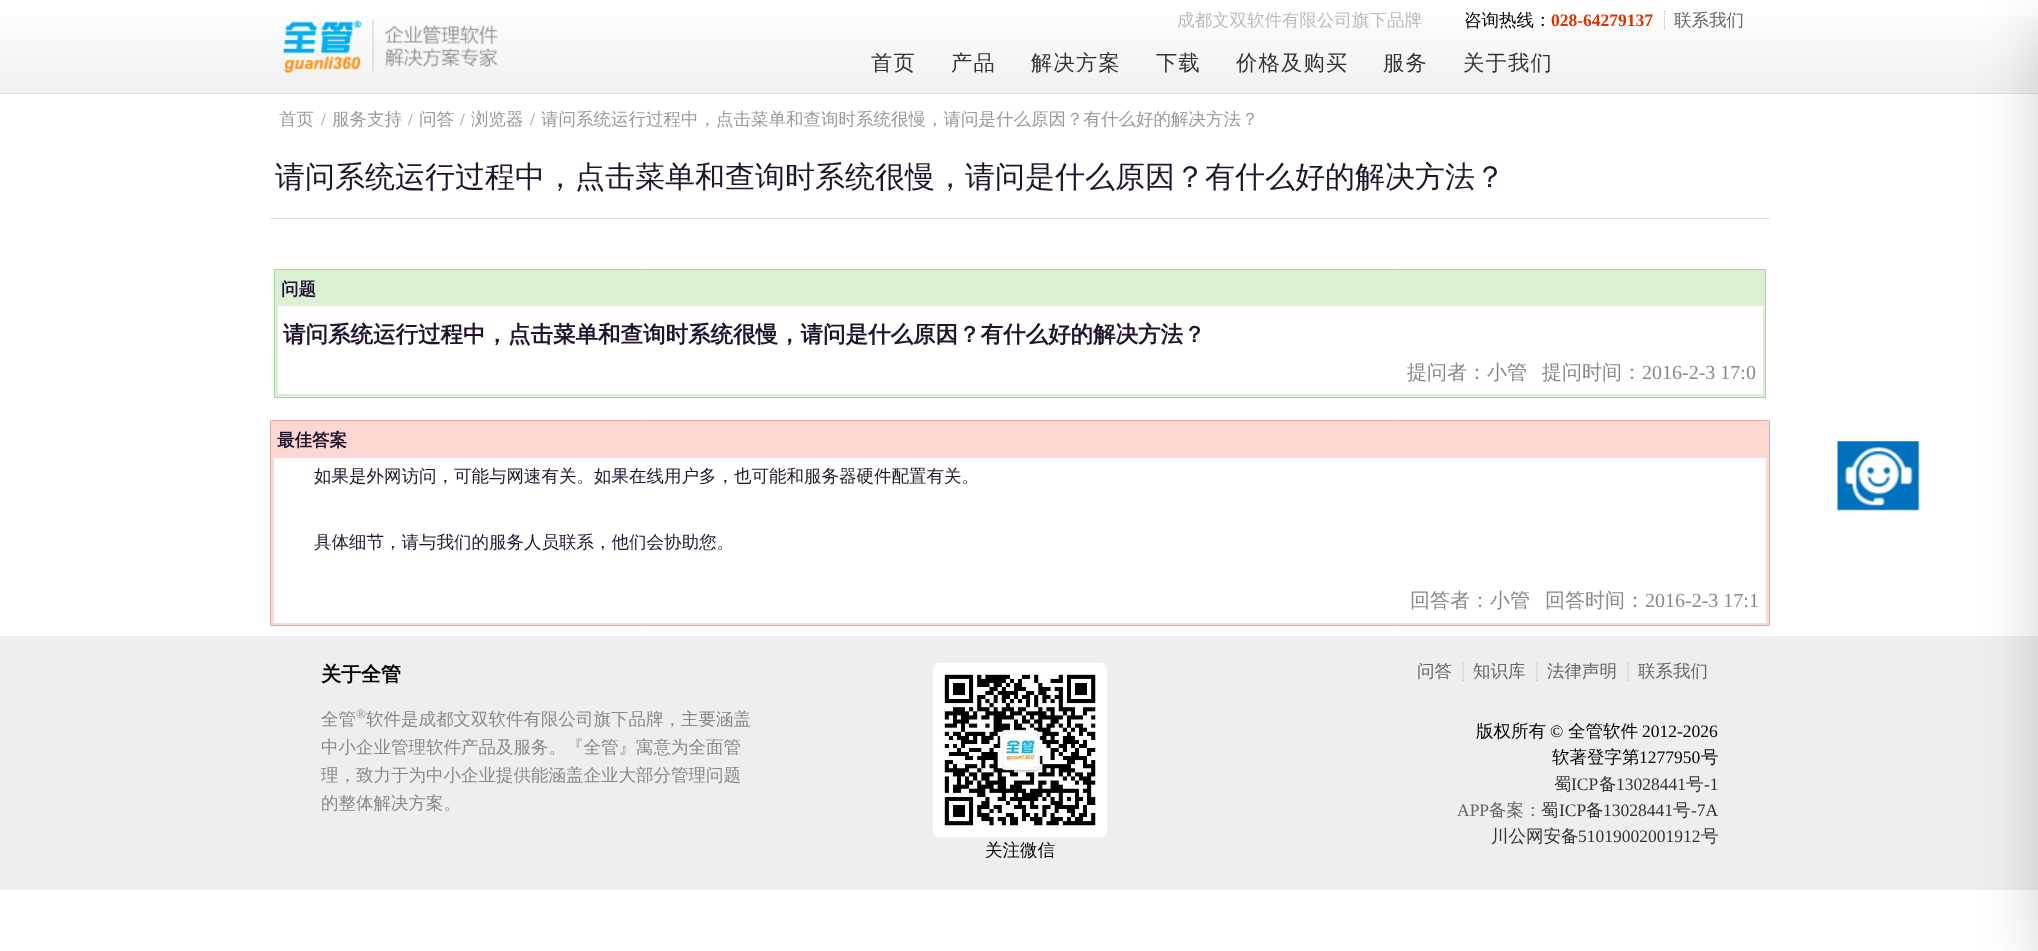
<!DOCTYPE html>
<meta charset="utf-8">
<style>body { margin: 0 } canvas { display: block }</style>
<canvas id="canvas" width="2038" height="951"></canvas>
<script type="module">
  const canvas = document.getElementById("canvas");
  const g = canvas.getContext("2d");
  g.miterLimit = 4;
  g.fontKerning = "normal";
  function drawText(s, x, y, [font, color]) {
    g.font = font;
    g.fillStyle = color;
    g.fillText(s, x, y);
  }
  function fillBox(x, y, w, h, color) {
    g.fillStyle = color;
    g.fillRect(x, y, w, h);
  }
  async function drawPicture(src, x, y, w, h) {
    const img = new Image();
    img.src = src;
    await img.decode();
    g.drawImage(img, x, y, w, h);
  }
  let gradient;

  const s1 = ["500 17.5px WenQuanYi Zen Hei", "#BBBBBB"];
  const s2 = ["500 17.5px WenQuanYi Zen Hei", "#000000"];
  const s3 = ["bold 17.5px Liberation Serif", "#DD3300"];
  const s4 = ["500 17.5px WenQuanYi Zen Hei", "#666666"];
  const s5 = ["500 21.25px WenQuanYi Zen Hei", "#333333"];
  const s6 = ["500 17.5px WenQuanYi Zen Hei", "#999999"];
  const s7 = ["17.5px Liberation Serif", "#999999"];
  const s8 = ["500 30px WenQuanYi Zen Hei", "#22132D"];
  const s9 = ["bold 17.5px WenQuanYi Zen Hei", "#22132D"];
  const s10 = ["bold 22.5px WenQuanYi Zen Hei", "#22132D"];
  const s11 = ["500 20px WenQuanYi Zen Hei", "#888888"];
  const s12 = ["20px Liberation Serif", "#888888"];
  const s13 = ["500 17.5px WenQuanYi Zen Hei", "#22132D"];
  const s14 = ["bold 20px WenQuanYi Zen Hei", "#000000"];
  const s15 = ["500 17.5px WenQuanYi Zen Hei", "#888888"];
  const s16 = ["13px Liberation Serif", "#888888"];
  const s17 = ["17.5px Liberation Serif", "#000000"];
  const s18 = ["500 17.5px WenQuanYi Zen Hei", "#333333"];
  const s19 = ["17.5px Liberation Serif", "#333333"];
  const s20 = ["17.5px Liberation Serif", "#666666"];

  fillBox(0, 0, 2038, 951, "#FFFFFF");
  gradient = g.createLinearGradient(1019, 0, 1019, 93);
  gradient.addColorStop(0, "#FFFFFF");
  gradient.addColorStop(1, "#F0F0F0");
  g.fillStyle = gradient;
  g.fillRect(0, 16, 2038, 77);
  fillBox(0, 93, 2038, 1, "#DDDDDD");
  await drawPicture("pic1.png", 282, 20, 216, 53);
  g.beginPath();
  g.moveTo(1664.5, 11);
  g.lineTo(1664.5, 30);
  g.strokeStyle = "#BBBBBB";
  g.lineWidth = 1.2;
  g.setLineDash([1.25, 1.25]);
  g.stroke();
  drawText("成都文双软件有限公司旗下品牌", 1177, 26, s1);
  drawText("咨询热线：", 1464, 26, s2);
  drawText("028-64279137", 1551, 26, s3);
  drawText("联系我们", 1674, 26, s4);
  g.letterSpacing = "1.25px";
  drawText("首页", 871, 70, s5);
  drawText("产品", 951, 70, s5);
  drawText("解决方案", 1031, 70, s5);
  drawText("下载", 1156, 70, s5);
  drawText("价格及购买", 1236, 70, s5);
  drawText("服务", 1383, 70, s5);
  drawText("关于我们", 1463, 70, s5);
  fillBox(0, 636, 2038, 254, "#EEEEEE");
  g.fillStyle = "rgba(0, 0, 0, 0.18)";
  g.filter = "blur(30px)";
  g.beginPath();
  g.rect(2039, 20, 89, 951);
  g.fill();
  g.filter = "none";
  g.letterSpacing = "0px";
  drawText("首页", 279, 125, s6);
  drawText("/", 321, 125, s7);
  drawText("服务支持", 332, 125, s6);
  drawText("/", 408, 125, s7);
  drawText("问答", 419, 125, s6);
  drawText("/", 460, 125, s7);
  drawText("浏览器", 471, 125, s6);
  drawText("/", 530, 125, s7);
  drawText("请问系统运行过程中，点击菜单和查询时系统很慢，请问是什么原因？有什么好的解决方法？", 541, 125, s6);
  fillBox(270, 218, 1500, 1, "#DDDDDD");
  drawText("请问系统运行过程中，点击菜单和查询时系统很慢，请问是什么原因？有什么好的解决方法？", 275, 187, s8);
  g.fillStyle = "#DBF1D4";
  g.beginPath();
  g.rect(274.5, 269.5, 1491, 128);
  g.fill();
  g.strokeStyle = "#A5DA94";
  g.lineWidth = 1;
  g.setLineDash([]);
  g.stroke();
  drawText("问题", 281, 295, s9);
  fillBox(278, 306, 1485, 88, "#FFFFFF");
  drawText("请问系统运行过程中，点击菜单和查询时系统很慢，请问是什么原因？有什么好的解决方法？", 283, 342, s10);
  drawText("提问者：小管", 1407, 379, s11);
  drawText("提问时间：", 1542, 379, s11);
  drawText("2016-2-3 17:0", 1642, 379, s12);
  g.fillStyle = "#FED6D2";
  g.beginPath();
  g.rect(270.5, 420.5, 1499, 205);
  g.fill();
  g.strokeStyle = "#E5ADA7";
  g.stroke();
  drawText("最佳答案", 277, 446, s9);
  fillBox(274, 458, 1492, 165, "#FFFFFF");
  drawText("如果是外网访问，可能与网速有关。如果在线用户多，也可能和服务器硬件配置有关。", 314, 482, s13);
  drawText("具体细节，请与我们的服务人员联系，他们会协助您。", 314, 548, s13);
  drawText("回答者：小管", 1410, 607, s11);
  drawText("回答时间：", 1545, 607, s11);
  drawText("2016-2-3 17:1", 1645, 607, s12);
  drawText("关于全管", 321, 681, s14);
  drawText("全管", 321, 725, s15);
  drawText("软件是成都文双软件有限公司旗下品牌，主要涵盖", 366, 725, s15);
  drawText("®", 356, 718, s16);
  drawText("中小企业管理软件产品及服务。『全管』寓意为全面管", 321, 753, s15);
  drawText("理，致力于为中小企业提供能涵盖企业大部分管理问题", 321, 781, s15);
  drawText("的整体解决方案。", 321, 809, s15);
  g.beginPath();
  g.moveTo(1463, 662.5);
  g.lineTo(1463, 681);
  g.strokeStyle = "#BBBBBB";
  g.lineWidth = 1.2;
  g.setLineDash([1.25, 1.25]);
  g.stroke();
  drawText("问答", 1417, 677, s4);
  g.beginPath();
  g.moveTo(1537, 662.5);
  g.lineTo(1537, 681);
  g.stroke();
  drawText("知识库", 1473, 677, s4);
  g.beginPath();
  g.moveTo(1628, 662.5);
  g.lineTo(1628, 681);
  g.stroke();
  drawText("法律声明", 1547, 677, s4);
  drawText("联系我们", 1638, 677, s4);
  drawText("版权所有", 1476, 737, s2);
  drawText("©", 1550, 737, s17);
  drawText("全管软件", 1568, 737, s2);
  drawText("2012-2026", 1642, 737, s17);
  drawText("软著登字第", 1552, 763, s2);
  drawText("1277950", 1639, 763, s17);
  drawText("号", 1701, 763, s2);
  drawText("蜀", 1554, 790, s18);
  drawText("ICP", 1571, 790, s19);
  drawText("备", 1599, 790, s18);
  drawText("13028441", 1616, 790, s19);
  drawText("号", 1686, 790, s18);
  drawText("-1", 1704, 790, s19);
  drawText("APP", 1457, 816, s20);
  drawText("备案：", 1489, 816, s4);
  drawText("蜀", 1541, 816, s18);
  drawText("ICP", 1559, 816, s19);
  drawText("备", 1586, 816, s18);
  drawText("13028441", 1603, 816, s19);
  drawText("号", 1673, 816, s18);
  drawText("-7A", 1691, 816, s19);
  drawText("川公网安备", 1491, 842, s18);
  drawText("51019002001912", 1578, 842, s19);
  drawText("号", 1701, 842, s18);
  await drawPicture("pic2.png", 932, 662, 176, 176);
  drawText("关注微信", 985, 856, s2);
  await drawPicture("pic3.png", 1837, 441, 83, 70);
</script>
